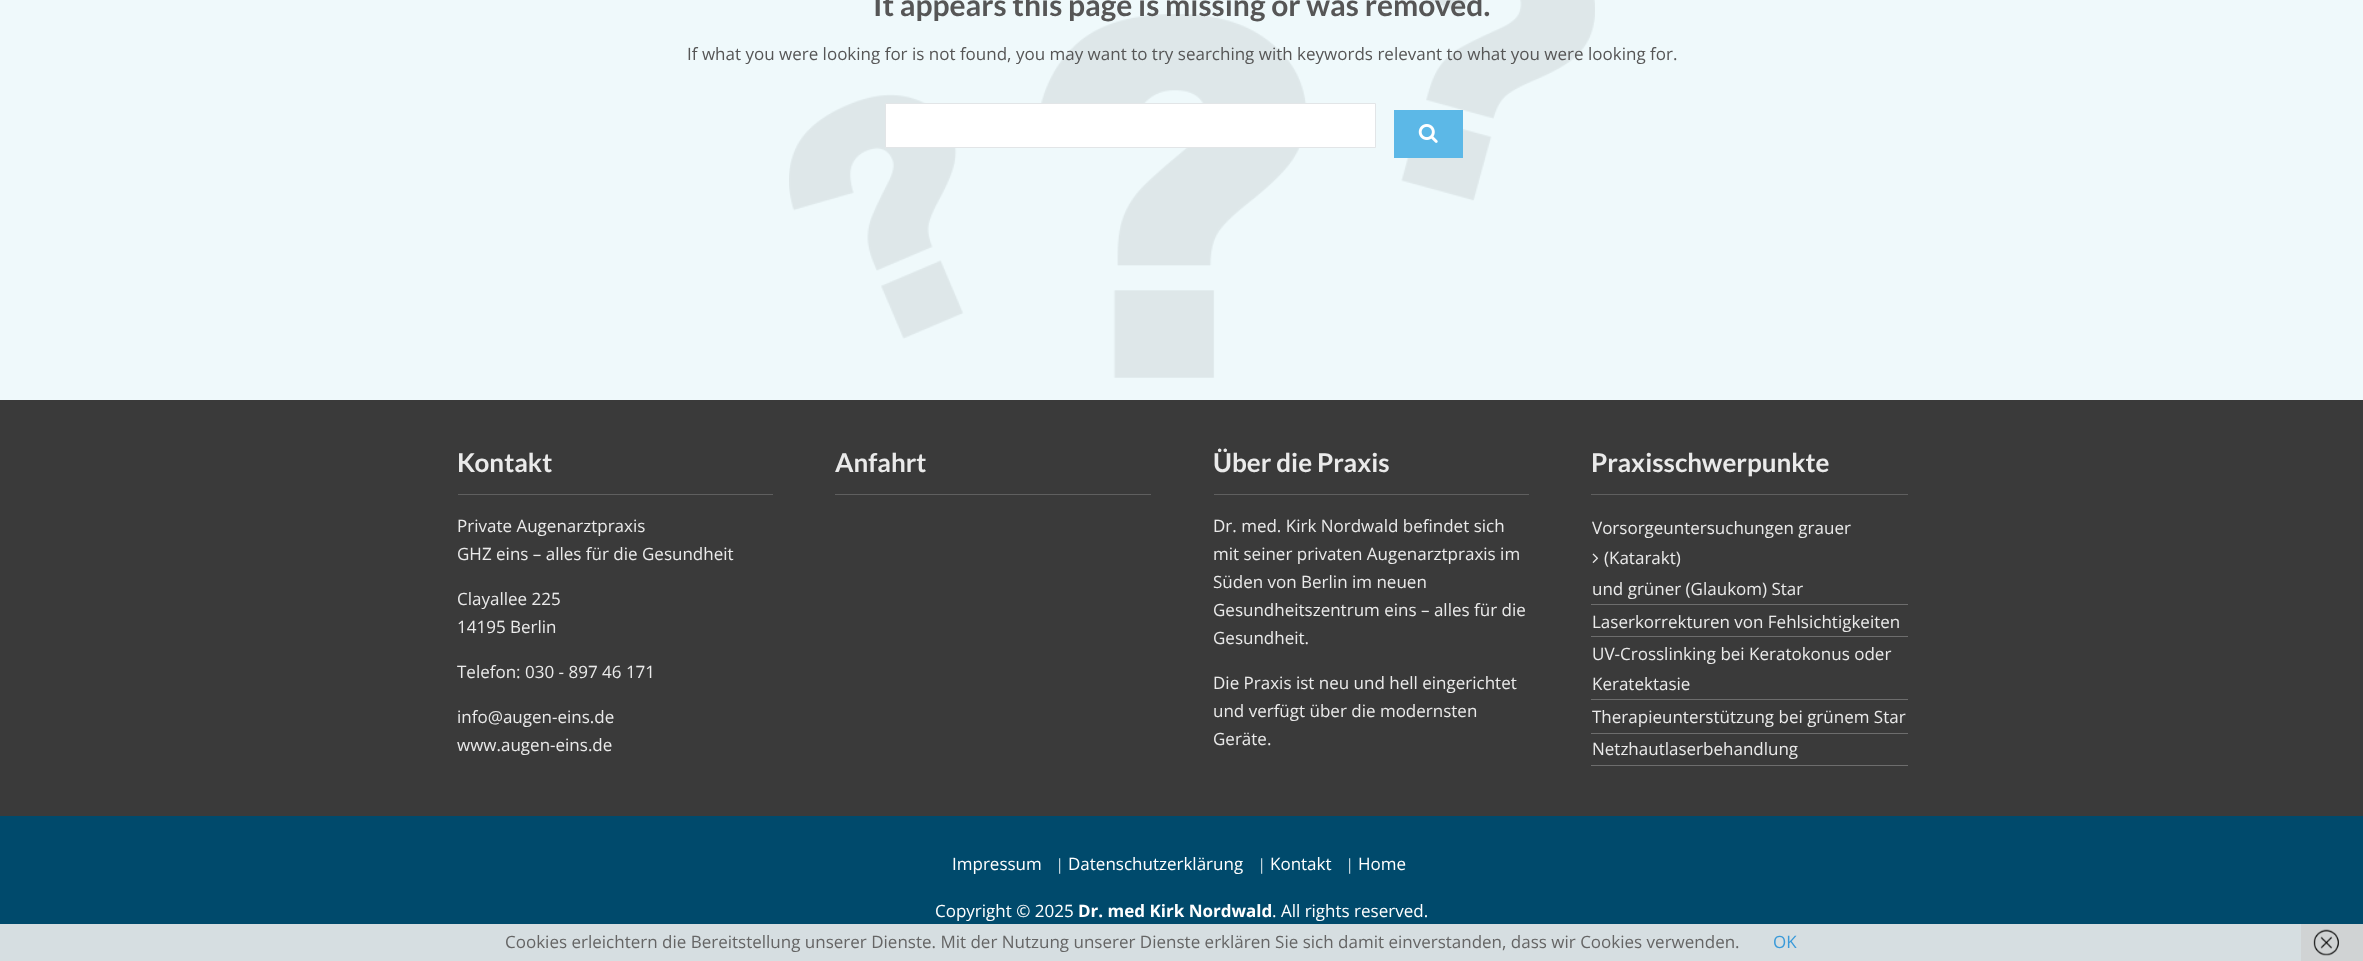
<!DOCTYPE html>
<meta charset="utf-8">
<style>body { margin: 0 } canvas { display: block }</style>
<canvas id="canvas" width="2363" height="961"></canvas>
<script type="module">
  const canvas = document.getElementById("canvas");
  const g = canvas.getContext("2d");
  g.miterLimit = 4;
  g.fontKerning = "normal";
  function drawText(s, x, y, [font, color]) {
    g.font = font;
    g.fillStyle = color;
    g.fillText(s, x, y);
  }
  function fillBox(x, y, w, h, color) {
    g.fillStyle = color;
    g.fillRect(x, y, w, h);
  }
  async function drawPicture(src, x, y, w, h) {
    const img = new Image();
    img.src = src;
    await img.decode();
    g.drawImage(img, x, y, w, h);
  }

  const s1 = ["bold 30px Lato", "#565656"];
  const s2 = ["17px Open Sans", "#565656"];
  const s3 = ["bold 26px Lato", "#EAEAEA"];
  const s4 = ["17px Open Sans", "#EAEAEA"];
  const s5 = ["17px Open Sans", "#FFFFFF"];
  const s6 = ["17px Liberation Serif", "#FFFFFF"];
  const s7 = ["bold 17px Open Sans", "#FFFFFF"];
  const s8 = ["17px Open Sans", "#656565"];
  const s9 = ["17px Open Sans", "#3A9AD9"];

  fillBox(0, 0, 2363, 961, "#EFF9FB");
  await drawPicture("pic1.png", 789, 0, 806, 378);
  drawText("It appears this page is missing or was removed.", 873, 16, s1);
  drawText("If what you were looking for is not found, you may want to try searching with keywords relevant to what you were looking for.", 687, 60, s2);
  g.fillStyle = "#FFFFFF";
  g.beginPath();
  g.rect(885.5, 103.5, 490, 44);
  g.fill();
  g.strokeStyle = "#E2E5E7";
  g.stroke();
  fillBox(1394, 110, 69, 48, "#5CB8E7");
  await drawPicture("pic2.png", 1418, 124, 20, 19);
  fillBox(0, 400, 2363, 416, "#3A3A3A");
  drawText("Kontakt", 457, 472, s3);
  fillBox(458, 494, 315, 1, "#5F5F5F");
  drawText("Private Augenarztpraxis", 457, 532, s4);
  drawText("GHZ eins – alles für die Gesundheit", 457, 560, s4);
  drawText("Clayallee 225", 457, 605, s4);
  drawText("14195 Berlin", 457, 633, s4);
  drawText("Telefon: 030 - 897 46 171", 457, 678, s4);
  drawText("info@augen-eins.de", 457, 723, s4);
  drawText("www.augen-eins.de", 457, 751, s4);
  drawText("Anfahrt", 835, 472, s3);
  fillBox(835, 494, 316, 1, "#5F5F5F");
  drawText("Über die Praxis", 1213, 472, s3);
  fillBox(1214, 494, 315, 1, "#5F5F5F");
  drawText("Dr. med. Kirk Nordwald befindet sich", 1213, 532, s4);
  drawText("mit seiner privaten Augenarztpraxis im", 1213, 560, s4);
  drawText("Süden von Berlin im neuen", 1213, 588, s4);
  drawText("Gesundheitszentrum eins – alles für die", 1213, 616, s4);
  drawText("Gesundheit.", 1213, 644, s4);
  drawText("Die Praxis ist neu und hell eingerichtet", 1213, 689, s4);
  drawText("und verfügt über die modernsten", 1213, 717, s4);
  drawText("Geräte.", 1213, 745, s4);
  drawText("Praxisschwerpunkte", 1591, 472, s3);
  fillBox(1591, 494, 317, 1, "#5F5F5F");
  fillBox(1591, 604, 317, 1, "#6D6D6D");
  drawText("Vorsorgeuntersuchungen grauer", 1592, 534, s4);
  await drawPicture("pic3.png", 1592, 553, 7, 10);
  drawText("(Katarakt)", 1604, 564, s4);
  drawText("und grüner (Glaukom) Star", 1592, 595, s4);
  fillBox(1591, 636, 317, 1, "#6D6D6D");
  drawText("Laserkorrekturen von Fehlsichtigkeiten", 1592, 628, s4);
  fillBox(1591, 699, 317, 1, "#6D6D6D");
  drawText("UV-Crosslinking bei Keratokonus oder", 1592, 660, s4);
  drawText("Keratektasie", 1592, 690, s4);
  fillBox(1591, 733, 317, 1, "#6D6D6D");
  drawText("Therapieunterstützung bei grünem Star", 1592, 723, s4);
  fillBox(1591, 765, 317, 1, "#6D6D6D");
  drawText("Netzhautlaserbehandlung", 1592, 755, s4);
  fillBox(0, 816, 2363, 108, "#004A6C");
  drawText("Impressum", 952, 870, s5);
  drawText("|", 1058, 870, s6);
  drawText("Datenschutzerklärung", 1068, 870, s5);
  drawText("|", 1260, 870, s6);
  drawText("Kontakt", 1270, 870, s5);
  drawText("|", 1348, 870, s6);
  drawText("Home", 1358, 870, s5);
  drawText("Copyright © 2025", 935, 917, s5);
  drawText("Dr. med Kirk Nordwald", 1078, 917, s7);
  drawText(". All rights reserved.", 1272, 917, s5);
  fillBox(0, 924, 2301, 37, "#D6DEE1");
  drawText("Cookies erleichtern die Bereitstellung unserer Dienste. Mit der Nutzung unserer Dienste erklären Sie sich damit einverstanden, dass wir Cookies verwenden.", 505, 948, s8);
  drawText("OK", 1773, 948, s9);
  fillBox(2301, 924, 62, 37, "#D0D3D4");
  await drawPicture("pic4.png", 2313, 929, 26, 27);
</script>
